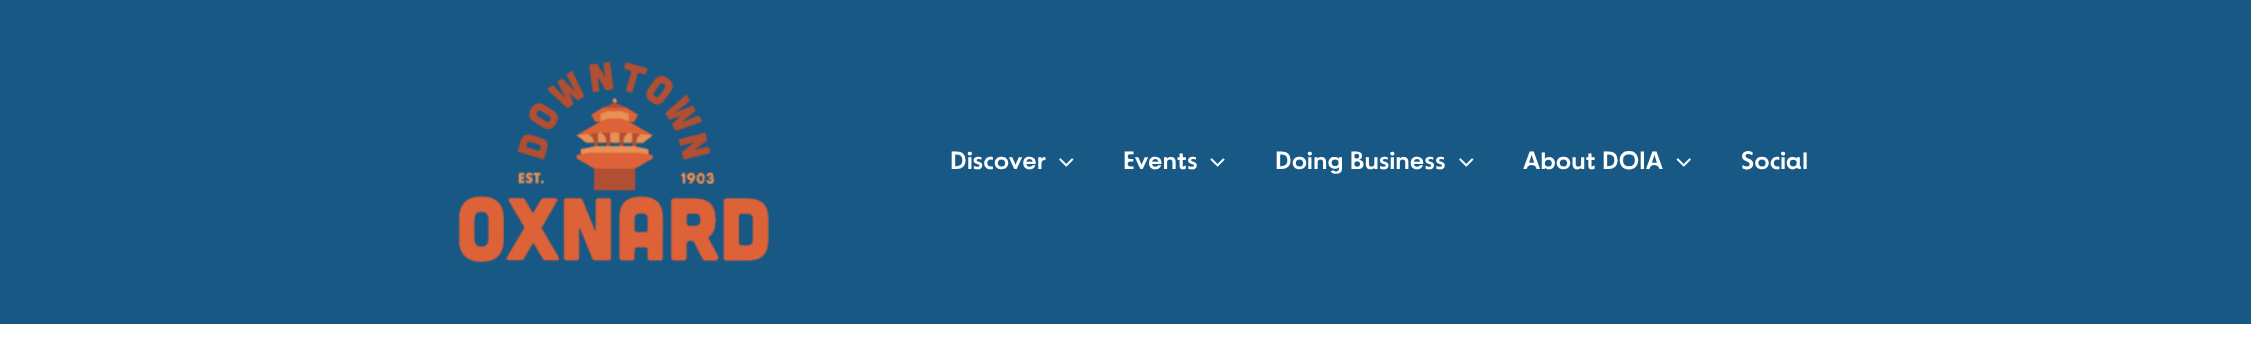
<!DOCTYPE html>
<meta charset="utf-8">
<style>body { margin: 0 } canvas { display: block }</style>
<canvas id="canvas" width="2251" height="346"></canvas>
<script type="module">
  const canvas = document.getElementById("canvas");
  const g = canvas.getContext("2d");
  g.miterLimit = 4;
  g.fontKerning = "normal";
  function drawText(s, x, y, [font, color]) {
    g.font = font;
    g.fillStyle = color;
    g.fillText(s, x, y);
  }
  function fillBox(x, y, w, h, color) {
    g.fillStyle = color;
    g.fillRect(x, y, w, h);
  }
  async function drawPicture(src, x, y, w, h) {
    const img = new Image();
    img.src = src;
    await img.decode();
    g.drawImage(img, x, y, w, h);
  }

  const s1 = ["25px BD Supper", "#FFFFFF"];

  fillBox(0, 0, 2251, 346, "#FFFFFF");
  fillBox(0, 0, 2251, 324, "#175885");
  await drawPicture("pic1.png", 458, 61, 311, 202);
  drawText("Discover", 950, 169, s1);
  await drawPicture("pic2.png", 1059, 158, 15, 9);
  drawText("Events", 1123, 169, s1);
  await drawPicture("pic3.png", 1210, 158, 15, 9);
  drawText("Doing Business", 1275, 169, s1);
  await drawPicture("pic2.png", 1459, 158, 15, 9);
  drawText("About DOIA", 1523, 169, s1);
  await drawPicture("pic4.png", 1676, 158, 15, 9);
  drawText("Social", 1741, 169, s1);
</script>
